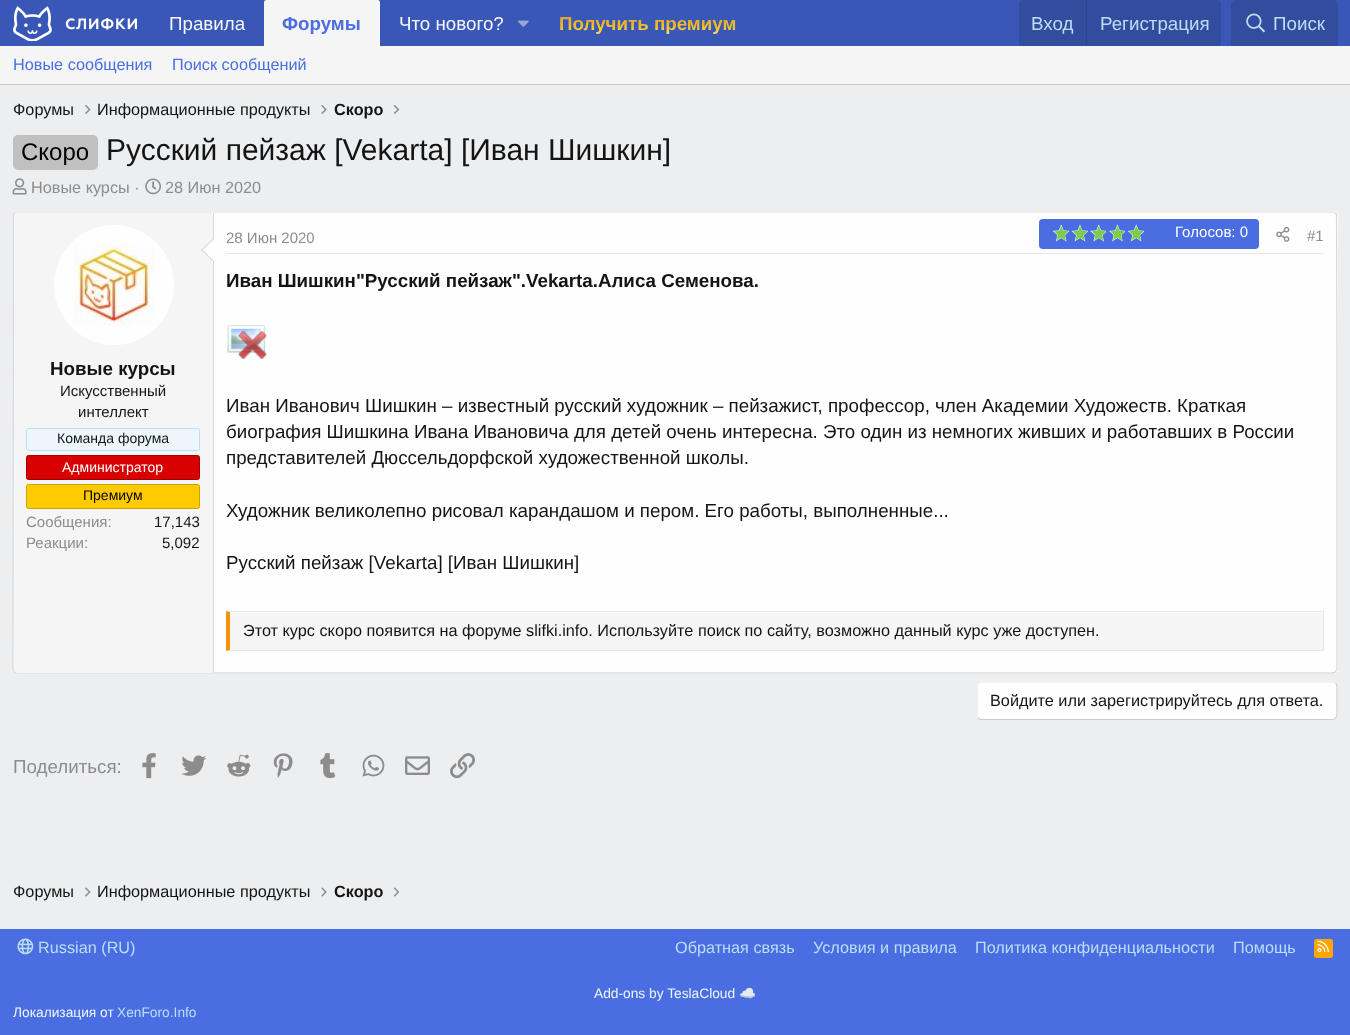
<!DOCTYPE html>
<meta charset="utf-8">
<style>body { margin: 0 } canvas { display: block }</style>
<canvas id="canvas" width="1350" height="1035"></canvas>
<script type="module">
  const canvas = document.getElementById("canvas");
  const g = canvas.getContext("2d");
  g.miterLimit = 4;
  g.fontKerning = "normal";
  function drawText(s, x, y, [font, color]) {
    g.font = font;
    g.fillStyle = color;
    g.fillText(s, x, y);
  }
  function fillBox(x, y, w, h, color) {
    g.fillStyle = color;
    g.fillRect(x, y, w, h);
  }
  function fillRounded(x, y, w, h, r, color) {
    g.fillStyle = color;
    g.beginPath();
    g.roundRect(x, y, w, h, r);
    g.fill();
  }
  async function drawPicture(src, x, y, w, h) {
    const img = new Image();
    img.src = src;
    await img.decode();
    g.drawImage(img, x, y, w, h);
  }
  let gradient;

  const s1 = ["18.75px Liberation Sans", "#F7F7F7"];
  const s2 = ["bold 18.75px Liberation Sans", "#4A6EE1"];
  const s3 = ["18.75px Liberation Sans", "#BCDEF5"];
  const s4 = ["16.25px Liberation Sans", "#4A6EE1"];
  const s5 = ["16.25px Liberation Sans", "#141414"];
  const s6 = ["bold 16.25px Liberation Sans", "#141414"];
  const s7 = ["24px Liberation Sans", "#000000"];
  const s8 = ["30px Liberation Sans", "#141414"];
  const s9 = ["16.25px Liberation Sans", "#8C8C8C"];
  const s10 = ["bold 18.75px Liberation Sans", "#141414"];
  const s11 = ["15px Liberation Sans", "#141414"];
  const s12 = ["14px Liberation Sans", "#141414"];
  const s13 = ["14px Liberation Sans", "#FFFFFF"];
  const s14 = ["14px Liberation Sans", "#000000"];
  const s15 = ["15px Liberation Sans", "#8C8C8C"];
  const s16 = ["15px Liberation Sans", "#FFFFFF"];
  const s17 = ["18.75px Liberation Sans", "#141414"];
  const s18 = ["18.75px Liberation Sans", "#8C8C8C"];
  const s19 = ["16.25px Liberation Sans", "#BCDEF5"];
  const s20 = ["13.75px Liberation Sans", "#EDF6FD"];
  const s21 = ["13.75px Noto Color Emoji", "#EDF6FD"];
  const s22 = ["13.75px Liberation Sans", "#BCDEF5"];

  fillBox(0, 0, 1350, 1035, "#EDEEF0");
  fillBox(0, 0, 1350, 46, "#3957B6");
  await drawPicture("pic1.png", 13, 6, 124, 35);
  drawText("Правила", 169, 30, s1);
  g.fillStyle = "#F5F5F5";
  g.beginPath();
  g.roundRect(264, 0, 116, 46, [2.5, 2.5, 0, 0]);
  g.fill();
  drawText("Форумы", 282, 30, s2);
  drawText("Что нового?", 399, 30, s1);
  await drawPicture("pic2.png", 518, 20, 11, 7);
  g.font = "bold 18.75px Liberation Sans";
  gradient = g.createLinearGradient(648, 0, 648, 46);
  gradient.addColorStop(0, "#EFD100");
  gradient.addColorStop(0.38, "#E2A233");
  gradient.addColorStop(0.6, "#F0C328");
  gradient.addColorStop(0.86, "#FFF1A3");
  gradient.addColorStop(1, "#FFE13E");
  g.fillStyle = gradient;
  g.fillText("Получить премиум", 559, 30);
  g.fillStyle = "#334D9E";
  g.beginPath();
  g.roundRect(1019, 0, 202, 46, [5, 5, 0, 0]);
  g.fill();
  drawText("Вход", 1031, 30, s3);
  fillBox(1086, 0, 1, 46, "#2E4489");
  drawText("Регистрация", 1100, 30, s3);
  g.fillStyle = "#334D9E";
  g.beginPath();
  g.roundRect(1231, 0, 107, 46, [5, 5, 0, 0]);
  g.fill();
  await drawPicture("pic3.png", 1246, 13, 19, 20);
  drawText("Поиск", 1273, 30, s3);
  fillBox(0, 46, 1350, 38, "#F5F5F5");
  fillBox(0, 84, 1350, 1, "#CBCBCB");
  drawText("Новые сообщения", 13, 70, s4);
  drawText("Поиск сообщений", 172, 70, s4);
  drawText("Форумы", 13, 115, s5);
  await drawPicture("pic4.png", 85, 105, 6, 9);
  drawText("Информационные продукты", 97, 115, s5);
  await drawPicture("pic5.png", 321, 105, 6, 9);
  drawText("Скоро", 334, 115, s6);
  await drawPicture("pic6.png", 393, 105, 7, 9);
  fillRounded(13, 135, 85, 35, 5, "#C0C0C0");
  drawText("Скоро", 21, 160, s7);
  drawText("Русский пейзаж [Vekarta] [Иван Шишкин]", 106, 160, s8);
  await drawPicture("pic7.png", 12, 178, 15, 17);
  drawText("Новые курсы ·", 31, 193, s9);
  await drawPicture("pic8.png", 145, 178, 16, 17);
  drawText("28 Июн 2020", 165, 193, s9);
  fillRounded(13, 211, 1325, 463, 5, "#FEFEFE");
  g.beginPath();
  g.moveTo(14.5, 213);
  g.lineTo(17.5, 212);
  g.lineTo(1332.5, 212);
  g.lineTo(1335.5, 213);
  g.strokeStyle = "#DFDFDF";
  g.lineWidth = 1.2;
  g.stroke();
  g.beginPath();
  g.moveTo(1335.5, 213);
  g.lineTo(1336.5, 215);
  g.lineTo(1337, 367);
  g.lineTo(1337, 669);
  g.lineTo(1335.5, 672);
  g.strokeStyle = "#D8D8D8";
  g.stroke();
  g.beginPath();
  g.moveTo(1335.5, 672);
  g.lineTo(1332.5, 673);
  g.lineTo(17.5, 673);
  g.lineTo(14.5, 672);
  g.strokeStyle = "#CBCBCB";
  g.stroke();
  g.beginPath();
  g.moveTo(14.5, 672);
  g.lineTo(13, 669);
  g.lineTo(13.5, 215);
  g.lineTo(14.5, 213);
  g.strokeStyle = "#D8D8D8";
  g.stroke();
  g.fillStyle = "#F5F5F5";
  g.beginPath();
  g.roundRect(14, 213, 200, 460, [4, 0, 0, 4]);
  g.fill();
  fillBox(213, 213, 1, 460, "#D8D8D8");
  g.fillStyle = "#FEFEFE";
  g.beginPath();
  g.arc(114, 285, 60, 0, Math.PI * 2);
  g.fill();
  await drawPicture("pic9.png", 73, 244, 82, 81);
  g.fillStyle = "#D8D8D8";
  g.beginPath();
  g.moveTo(214, 237.5);
  g.lineTo(214, 262.5);
  g.lineTo(201, 250);
  g.closePath();
  g.fill();
  g.fillStyle = "#FEFEFE";
  g.beginPath();
  g.moveTo(214, 239);
  g.lineTo(214, 261);
  g.lineTo(202.5, 250);
  g.closePath();
  g.fill();
  drawText("Новые курсы", 50, 375, s10);
  drawText("Искусственный", 60, 396, s11);
  drawText("интеллект", 78, 417, s11);
  g.fillStyle = "#EDF6FD";
  g.beginPath();
  g.roundRect(26.5, 428.5, 173, 22, 2);
  g.fill();
  g.strokeStyle = "#BCDEF5";
  g.lineWidth = 1;
  g.stroke();
  drawText("Команда форума", 57, 443, s12);
  g.fillStyle = "#D80000";
  g.beginPath();
  g.roundRect(26.5, 455.5, 173, 24, 2);
  g.fill();
  g.strokeStyle = "#A50000";
  g.stroke();
  drawText("Администратор", 62, 472, s13);
  g.fillStyle = "#FFCB00";
  g.beginPath();
  g.roundRect(26.5, 484.5, 173, 24, 2);
  g.fill();
  g.strokeStyle = "#CCA200";
  g.stroke();
  drawText("Премиум", 83, 500, s14);
  drawText("Сообщения:", 26, 527, s15);
  drawText("17,143", 154, 527, s11);
  drawText("Реакции:", 26, 548, s15);
  drawText("5,092", 162, 548, s11);
  fillBox(226, 253, 1098, 1, "#E7E7E7");
  drawText("28 Июн 2020", 226, 243, s15);
  fillRounded(1039, 219, 220, 30, 4, "#4A6EE1");
  await drawPicture("pic10.png", 1053, 224, 16, 18);
  await drawPicture("pic11.png", 1071, 224, 17, 18);
  await drawPicture("pic12.png", 1090, 224, 16, 18);
  await drawPicture("pic13.png", 1109, 224, 16, 18);
  await drawPicture("pic10.png", 1128, 224, 16, 18);
  drawText("Голосов: 0", 1175, 237, s16);
  await drawPicture("pic14.png", 1276, 226, 14, 16);
  drawText("#1", 1307, 241, s15);
  drawText("Иван Шишкин\"Русский пейзаж\".Vekarta.Алиса Семенова.", 226, 287, s10);
  await drawPicture("pic15.png", 227, 325, 40, 34);
  drawText("Иван Иванович Шишкин – известный русский художник – пейзажист, профессор, член Академии Художеств. Краткая", 226, 412, s17);
  drawText("биография Шишкина Ивана Ивановича для детей очень интересна. Это один из немногих живших и работавших в России", 226, 438, s17);
  drawText("представителей Дюссельдорфской художественной школы.", 226, 464, s17);
  drawText("Художник великолепно рисовал карандашом и пером. Его работы, выполненные...", 226, 517, s17);
  drawText("Русский пейзаж [Vekarta] [Иван Шишкин]", 226, 569, s17);
  fillBox(230, 613, 1093, 37, "#F5F5F5");
  g.fillStyle = "#E7E7E7";
  g.beginPath();
  g.moveTo(226, 611);
  g.lineTo(1324, 611);
  g.lineTo(1322, 612);
  g.lineTo(230, 612);
  g.closePath();
  g.fill();
  fillBox(1323, 611, 1, 40, "#E7E7E7");
  g.beginPath();
  g.moveTo(1324, 651);
  g.lineTo(226, 651);
  g.lineTo(230, 650);
  g.lineTo(1322, 650);
  g.closePath();
  g.fill();
  g.fillStyle = "#F2930D";
  g.beginPath();
  g.moveTo(226, 651);
  g.lineTo(226, 611);
  g.lineTo(230, 612);
  g.lineTo(230, 650);
  g.closePath();
  g.fill();
  drawText("Этот курс скоро появится на форуме slifki.info. Используйте поиск по сайту, возможно данный курс уже доступен.", 243, 636, s5);
  fillRounded(976, 681, 362, 39, 5, "#FEFEFE");
  g.beginPath();
  g.moveTo(1335.5, 683);
  g.bezierCurveTo(1336.5, 684, 1337, 685, 1337, 686);
  g.lineTo(1337, 715);
  g.bezierCurveTo(1337, 716, 1336.5, 717.5, 1335.5, 718);
  g.bezierCurveTo(1335, 719, 1333.5, 719.5, 1332.5, 719.5);
  g.lineTo(981, 719.5);
  g.bezierCurveTo(980, 719.5, 979, 719, 978, 718);
  g.strokeStyle = "#CBCBCB";
  g.lineWidth = 1.2;
  g.stroke();
  g.beginPath();
  g.moveTo(978, 718);
  g.bezierCurveTo(977.5, 717.5, 977, 716, 977, 715);
  g.lineTo(977, 686);
  g.bezierCurveTo(977, 685, 977.5, 684, 978, 683);
  g.bezierCurveTo(979, 682.5, 980, 682, 981, 682);
  g.lineTo(1332.5, 682);
  g.bezierCurveTo(1333.5, 682, 1335, 682.5, 1335.5, 683);
  g.strokeStyle = "#E5E5E5";
  g.stroke();
  drawText("Войдите или зарегистрируйтесь для ответа.", 990, 706, s5);
  drawText("Поделиться:", 13, 773, s18);
  await drawPicture("pic16.png", 142, 753, 14, 26);
  await drawPicture("pic17.png", 181, 755, 25, 21);
  await drawPicture("pic18.png", 227, 754, 24, 23);
  await drawPicture("pic19.png", 273, 753, 20, 25);
  await drawPicture("pic20.png", 320, 753, 16, 26);
  await drawPicture("pic21.png", 362, 754, 23, 23);
  await drawPicture("pic22.png", 405, 756, 25, 19);
  await drawPicture("pic23.png", 450, 753, 25, 26);
  drawText("Форумы", 13, 897, s5);
  await drawPicture("pic24.png", 85, 887, 6, 10);
  drawText("Информационные продукты", 97, 897, s5);
  await drawPicture("pic25.png", 321, 887, 6, 10);
  drawText("Скоро", 334, 897, s6);
  await drawPicture("pic26.png", 393, 887, 7, 10);
  fillBox(0, 929, 1350, 106, "#4A6EE1");
  await drawPicture("pic27.png", 17, 938, 17, 17);
  drawText("Russian (RU)", 38, 953, s19);
  drawText("Обратная связь", 675, 953, s19);
  drawText("Условия и правила", 813, 953, s19);
  drawText("Политика конфиденциальности", 975, 953, s19);
  drawText("Помощь", 1233, 953, s19);
  fillRounded(1314, 939, 19, 19, 2.5, "#FFA500");
  await drawPicture("pic28.png", 1317, 940, 12, 13);
  drawText("Add-ons by TeslaCloud", 594, 998, s20);
  drawText("☁️", 739, 998, s21);
  drawText("Локализация от", 13, 1017, s20);
  drawText("XenForo.Info", 117, 1017, s22);
</script>
